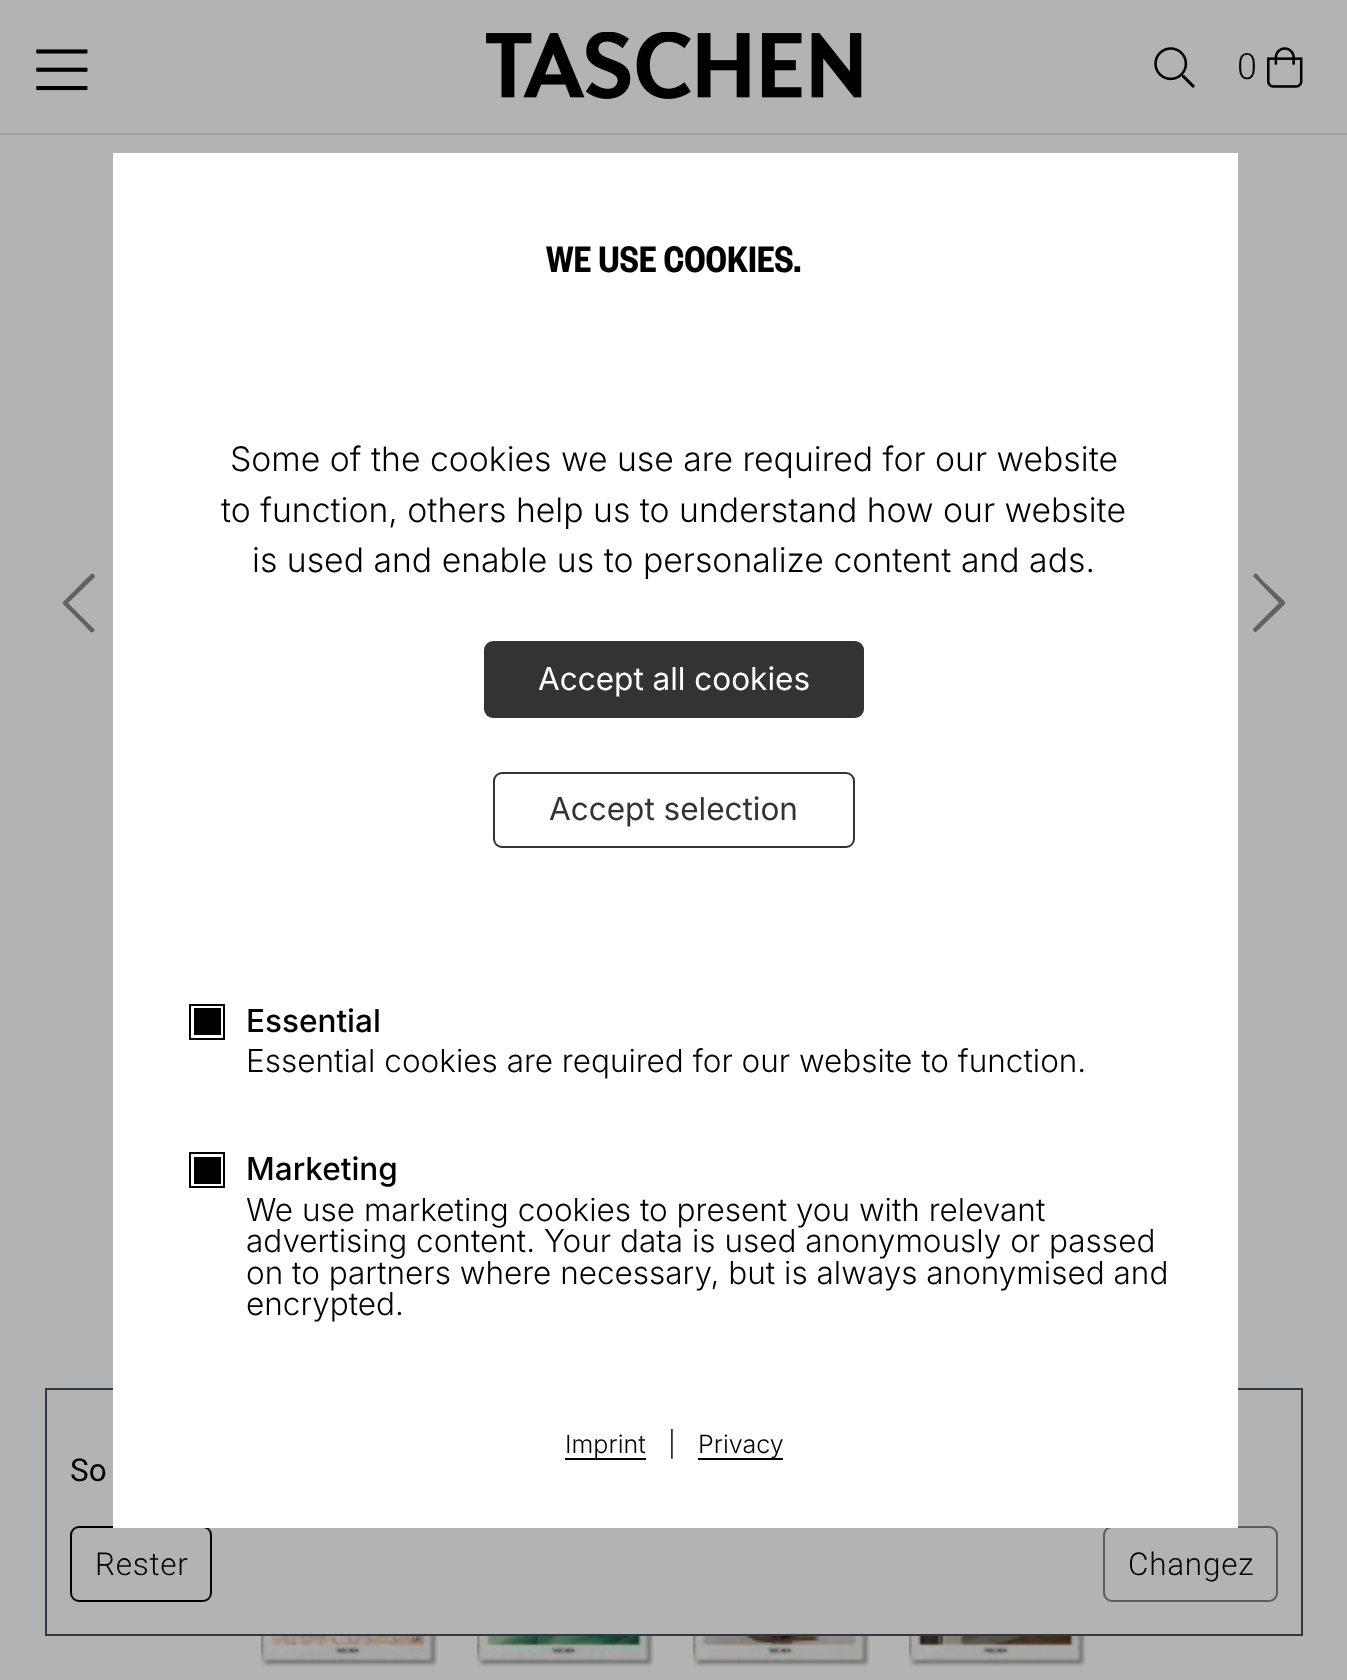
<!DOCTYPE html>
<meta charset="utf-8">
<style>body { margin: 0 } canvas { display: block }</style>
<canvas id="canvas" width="1347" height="1680"></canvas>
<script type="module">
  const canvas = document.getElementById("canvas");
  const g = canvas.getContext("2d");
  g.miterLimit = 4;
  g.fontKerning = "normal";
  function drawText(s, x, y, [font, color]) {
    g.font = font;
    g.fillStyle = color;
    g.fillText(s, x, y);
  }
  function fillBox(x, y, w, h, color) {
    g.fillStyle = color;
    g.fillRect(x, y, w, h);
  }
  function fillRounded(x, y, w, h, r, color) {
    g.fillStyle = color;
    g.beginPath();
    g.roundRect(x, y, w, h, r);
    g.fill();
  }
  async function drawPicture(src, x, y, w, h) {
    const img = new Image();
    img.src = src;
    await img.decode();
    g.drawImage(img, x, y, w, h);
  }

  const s1 = ["300 36px Roboto", "#000000"];
  const s2 = ["31.5px Roboto", "#000000"];
  const s3 = ["300 31.5px Roboto", "#000000"];
  const s4 = ["600 40.5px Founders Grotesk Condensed", "#000000"];
  const s5 = ["300 33.75px Inter", "#000000"];
  const s6 = ["31.5px Inter", "#FFFFFF"];
  const s7 = ["31.5px Inter", "#333333"];
  const s8 = ["500 31.5px Inter", "#000000"];
  const s9 = ["300 31.5px Inter", "#000000"];
  const s10 = ["300 25px Inter", "#000000"];

  fillBox(0, 0, 1347, 1680, "#B3B3B3");
  fillBox(0, 133, 1347, 2, "#A0A0A0");
  await drawPicture("pic1.png", 36, 49, 52, 42);
  await drawPicture("pic2.png", 486, 32, 376, 67);
  await drawPicture("pic3.png", 1154, 47, 41, 41);
  g.letterSpacing = "0.75px";
  drawText("0", 1237, 79, s1);
  await drawPicture("pic4.png", 1267, 47, 36, 41);
  g.fillStyle = "#626262";
  g.beginPath();
  g.moveTo(93, 632);
  g.lineTo(94, 631);
  g.bezierCurveTo(95, 630, 95, 629, 94, 629);
  g.lineTo(68, 603);
  g.lineTo(95, 577);
  g.bezierCurveTo(95, 575, 93, 573, 91, 574);
  g.lineTo(68, 597);
  g.bezierCurveTo(61, 604, 61, 602, 68, 609);
  g.lineTo(86, 627);
  g.bezierCurveTo(89, 630, 91, 634, 93, 632);
  g.closePath();
  g.fill();
  g.beginPath();
  g.moveTo(1254, 574);
  g.lineTo(1254, 575);
  g.bezierCurveTo(1253, 576, 1253, 577, 1254, 577);
  g.lineTo(1279, 603);
  g.lineTo(1253, 629);
  g.bezierCurveTo(1253, 631, 1255, 633, 1256, 632);
  g.lineTo(1280, 609);
  g.bezierCurveTo(1287, 602, 1287, 604, 1280, 597);
  g.lineTo(1261, 579);
  g.bezierCurveTo(1259, 576, 1256, 572, 1254, 574);
  g.closePath();
  g.fill();
  await drawPicture("pic5.png", 261, 1636, 177, 31);
  await drawPicture("pic6.png", 477, 1636, 177, 31);
  await drawPicture("pic7.png", 693, 1636, 177, 31);
  await drawPicture("pic8.png", 909, 1636, 177, 31);
  g.strokeStyle = "#33383D";
  g.lineWidth = 2;
  g.strokeRect(46, 1389, 1256, 246);
  g.letterSpacing = "0px";
  drawText("So", 70, 1481, s2);
  g.beginPath();
  g.roundRect(71, 1527, 140, 74, 8);
  g.strokeStyle = "#000000";
  g.stroke();
  g.letterSpacing = "0.75px";
  drawText("Rester", 95, 1575, s3);
  g.beginPath();
  g.roundRect(1104, 1527, 173, 74, 8);
  g.strokeStyle = "#5B5B5B";
  g.stroke();
  drawText("Changez", 1128, 1575, s3);
  fillBox(113, 153, 1125, 1375, "#FFFFFF");
  g.letterSpacing = "0px";
  drawText("WE USE COOKIES.", 546, 272, s4);
  drawText("Some of the cookies we use are required for our website", 230, 471, s5);
  drawText("to function, others help us to understand how our website", 221, 522, s5);
  drawText("is used and enable us to personalize content and ads.", 252, 572, s5);
  fillRounded(484, 641, 380, 77, 9, "#333333");
  drawText("Accept all cookies", 538, 690, s6);
  g.beginPath();
  g.roundRect(494, 773, 360, 74, 8);
  g.strokeStyle = "#333333";
  g.stroke();
  drawText("Accept selection", 549, 820, s7);
  g.strokeStyle = "#000000";
  g.strokeRect(190, 1005, 34, 34);
  fillBox(194, 1008, 27, 27, "#000000");
  drawText("Essential", 246, 1032, s8);
  drawText("Essential cookies are required for our website to function.", 246, 1072, s9);
  g.strokeRect(190, 1153, 34, 34);
  fillBox(194, 1157, 27, 27, "#000000");
  drawText("Marketing", 246, 1180, s8);
  drawText("We use marketing cookies to present you with relevant", 246, 1221, s9);
  drawText("advertising content. Your data is used anonymously or passed", 246, 1252, s9);
  drawText("on to partners where necessary, but is always anonymised and", 246, 1284, s9);
  drawText("encrypted.", 246, 1315, s9);
  fillBox(565, 1458, 81, 2, "#000000");
  drawText("Imprint", 565, 1453, s10);
  drawText("|", 668, 1453, s10);
  fillBox(698, 1458, 85, 2, "#000000");
  drawText("Privacy", 698, 1453, s10);
</script>
